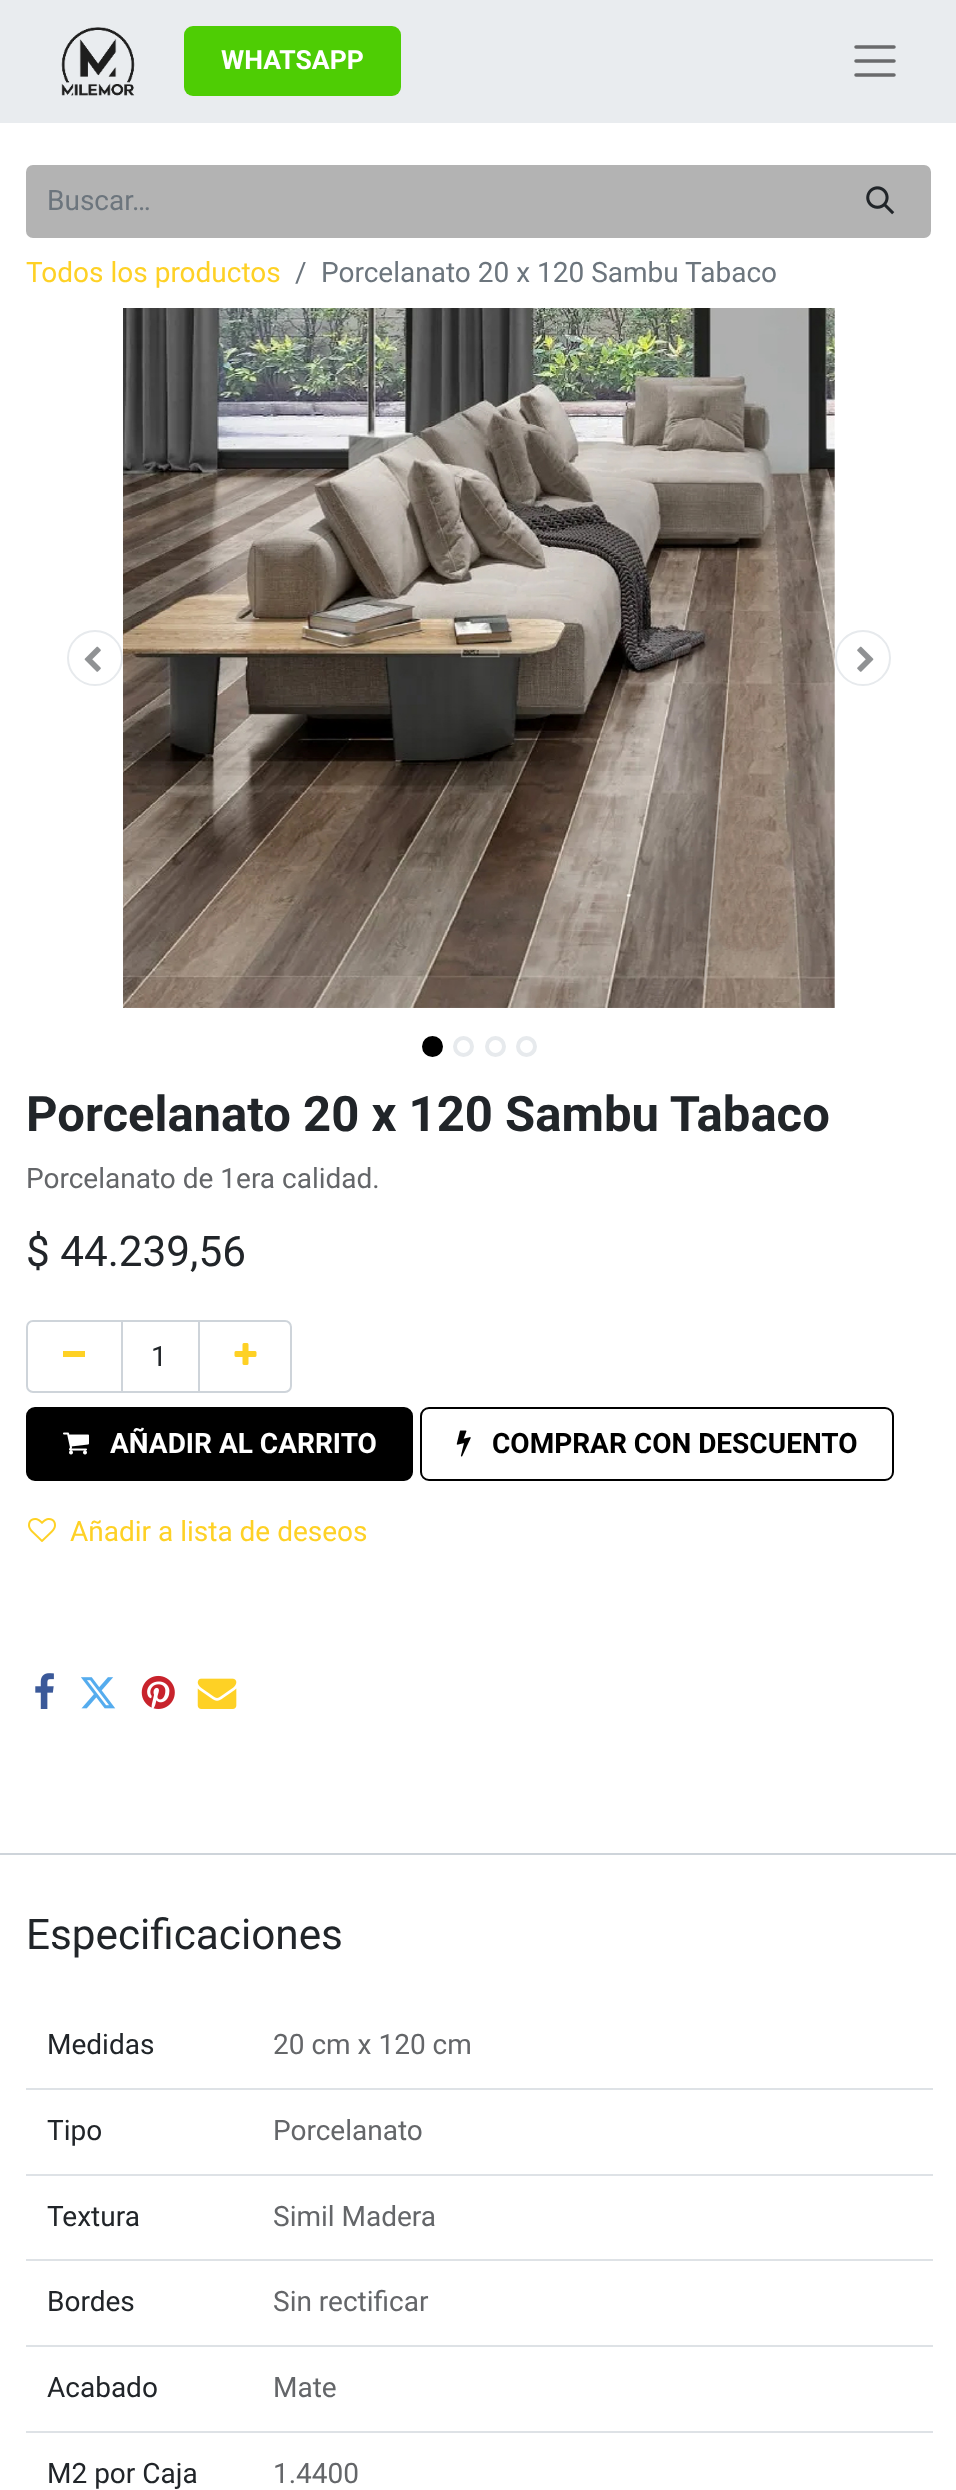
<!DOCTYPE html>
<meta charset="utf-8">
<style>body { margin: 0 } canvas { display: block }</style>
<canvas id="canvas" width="956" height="2490"></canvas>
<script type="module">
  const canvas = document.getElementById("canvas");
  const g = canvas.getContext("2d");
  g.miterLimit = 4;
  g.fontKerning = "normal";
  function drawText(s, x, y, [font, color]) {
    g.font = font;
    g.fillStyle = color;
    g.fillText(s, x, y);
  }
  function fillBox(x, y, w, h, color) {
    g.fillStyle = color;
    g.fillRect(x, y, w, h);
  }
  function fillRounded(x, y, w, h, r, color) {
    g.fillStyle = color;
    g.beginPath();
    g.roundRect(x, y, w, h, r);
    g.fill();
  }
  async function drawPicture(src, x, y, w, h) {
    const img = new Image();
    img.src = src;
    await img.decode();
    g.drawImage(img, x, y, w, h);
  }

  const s1 = ["bold 26.5px Roboto", "#FFFFFF"];
  const s2 = ["28px Roboto", "#6C757D"];
  const s3 = ["28px Roboto", "#FED125"];
  const s4 = ["bold 49px Roboto", "#212529"];
  const s5 = ["28px Roboto", "#646669"];
  const s6 = ["42.25px Roboto", "#212529"];
  const s7 = ["28px Roboto", "#212529"];
  const s8 = ["bold 28px Roboto", "#FFFFFF"];
  const s9 = ["bold 28px Roboto", "#000000"];

  fillBox(0, 0, 956, 2490, "#FFFFFF");
  fillBox(0, 0, 956, 123, "#E9ECEF");
  await drawPicture("pic1.png", 61, 27, 74, 69);
  fillRounded(184, 26, 217, 70, 9, "#4ECD04");
  drawText("WHATSAPP", 221, 69, s1);
  g.beginPath();
  g.moveTo(856, 47);
  g.lineTo(894, 47);
  g.moveTo(856, 61);
  g.lineTo(894, 61);
  g.moveTo(856, 75);
  g.lineTo(894, 75);
  g.strokeStyle = "#696A6C";
  g.lineWidth = 3.5;
  g.lineCap = "round";
  g.stroke();
  g.fillStyle = "#B3B3B3";
  g.beginPath();
  g.roundRect(26, 165, 805, 73, [7, 0, 0, 7]);
  g.fill();
  drawText("Buscar…", 47, 210, s2);
  g.fillStyle = "#B3B3B3";
  g.beginPath();
  g.roundRect(831, 166, 99, 71, [0, 6, 6, 0]);
  g.fill();
  g.strokeStyle = "#B3B3B3";
  g.lineWidth = 2;
  g.stroke();
  await drawPicture("pic2.png", 866, 186, 29, 29);
  drawText("Todos los productos", 26, 282, s3);
  drawText("/", 295, 282, s2);
  drawText("Porcelanato 20 x 120 Sambu Tabaco", 321, 282, s2);
  g.beginPath();
  g.arc(95, 658, 27, 0, Math.PI * 2);
  g.strokeStyle = "#E7EAED";
  g.stroke();
  await drawPicture("pic3.png", 84, 646, 17, 26);
  await drawPicture("pic4.png", 123, 308, 712, 700);
  g.beginPath();
  g.arc(863, 658, 27, 0, Math.PI * 2);
  g.stroke();
  await drawPicture("pic5.png", 857, 646, 17, 26);
  g.fillStyle = "#000000";
  g.beginPath();
  g.arc(432.5, 1046.5, 8.5, 0, Math.PI * 2);
  g.fill();
  g.strokeStyle = "#000000";
  g.lineWidth = 4;
  g.stroke();
  g.beginPath();
  g.arc(463.5, 1046.5, 8.5, 0, Math.PI * 2);
  g.strokeStyle = "#E7EAED";
  g.stroke();
  g.beginPath();
  g.arc(495.5, 1046.5, 8.5, 0, Math.PI * 2);
  g.stroke();
  g.beginPath();
  g.arc(526.5, 1046.5, 8.5, 0, Math.PI * 2);
  g.stroke();
  drawText("Porcelanato 20 x 120 Sambu Tabaco", 26, 1131, s4);
  drawText("Porcelanato de 1era calidad.", 26, 1188, s5);
  drawText("$ 44.239,56", 26, 1266, s6);
  g.strokeStyle = "#CED4DA";
  g.lineWidth = 2;
  g.strokeRect(122, 1321, 77, 71);
  g.beginPath();
  g.roundRect(27, 1321, 95, 71, [6, 0, 0, 6]);
  g.stroke();
  fillBox(63, 1351, 22, 6, "#FED125");
  drawText("1", 151, 1366, s7);
  g.beginPath();
  g.roundRect(199, 1321, 92, 71, [0, 6, 6, 0]);
  g.stroke();
  await drawPicture("pic6.png", 234, 1343, 23, 22);
  g.fillStyle = "#000000";
  g.beginPath();
  g.roundRect(27, 1408, 385, 72, 8);
  g.fill();
  g.strokeStyle = "#000000";
  g.stroke();
  await drawPicture("pic7.png", 63, 1432, 26, 23);
  drawText("AÑADIR AL CARRITO", 110, 1453, s8);
  g.beginPath();
  g.roundRect(421, 1408, 472, 72, 8);
  g.stroke();
  await drawPicture("pic8.png", 456, 1430, 15, 27);
  drawText("COMPRAR CON DESCUENTO", 492, 1453, s9);
  await drawPicture("pic9.png", 28, 1518, 28, 24);
  drawText("Añadir a lista de deseos", 70, 1541, s3);
  await drawPicture("pic10.png", 35, 1673, 19, 36);
  await drawPicture("pic11.png", 81, 1677, 35, 32);
  await drawPicture("pic12.png", 141, 1675, 34, 34);
  await drawPicture("pic13.png", 197, 1678, 40, 31);
  fillBox(0, 1853, 956, 2, "#CED4DA");
  drawText("Especificaciones", 26, 1949, s6);
  drawText("Medidas", 47, 2054, s7);
  fillBox(26, 2088, 907, 2, "#DEE2E6");
  drawText("20 cm x 120 cm", 273, 2054, s5);
  drawText("Tipo", 47, 2140, s7);
  fillBox(26, 2174, 907, 2, "#DEE2E6");
  drawText("Porcelanato", 273, 2140, s5);
  drawText("Textura", 47, 2226, s7);
  fillBox(26, 2259, 907, 2, "#DEE2E6");
  drawText("Simil Madera", 273, 2226, s5);
  drawText("Bordes", 47, 2311, s7);
  fillBox(26, 2345, 907, 2, "#DEE2E6");
  drawText("Sin rectificar", 273, 2311, s5);
  drawText("Acabado", 47, 2397, s7);
  fillBox(26, 2431, 907, 2, "#DEE2E6");
  drawText("Mate", 273, 2397, s5);
  drawText("M2 por Caja", 47, 2483, s7);
  drawText("1.4400", 273, 2483, s5);
</script>
